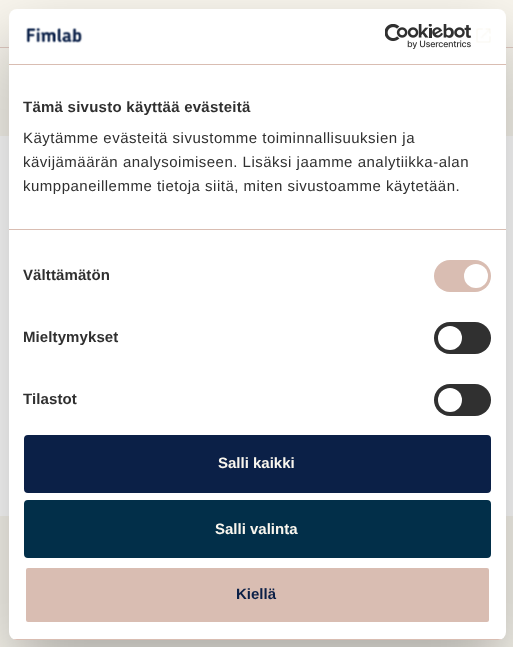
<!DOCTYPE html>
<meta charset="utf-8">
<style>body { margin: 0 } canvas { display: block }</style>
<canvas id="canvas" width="513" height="647"></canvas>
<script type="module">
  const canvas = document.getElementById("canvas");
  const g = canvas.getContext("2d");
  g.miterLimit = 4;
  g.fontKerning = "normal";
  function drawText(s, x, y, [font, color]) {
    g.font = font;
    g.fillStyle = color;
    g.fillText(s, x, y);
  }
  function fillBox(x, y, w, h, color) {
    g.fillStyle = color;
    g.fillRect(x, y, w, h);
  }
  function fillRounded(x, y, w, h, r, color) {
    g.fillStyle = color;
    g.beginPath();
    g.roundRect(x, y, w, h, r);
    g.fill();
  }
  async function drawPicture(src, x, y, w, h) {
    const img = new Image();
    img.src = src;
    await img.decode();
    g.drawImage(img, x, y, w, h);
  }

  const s1 = ["bold 15px Liberation Sans", "#303030"];
  const s2 = ["15px Liberation Sans", "#303030"];
  const s3 = ["bold 15px Liberation Sans", "#F9F6EE"];
  const s4 = ["bold 15px Liberation Sans", "#0B2047"];

  fillBox(0, 0, 513, 647, "#FFFFFF");
  fillBox(0, 0, 513, 47, "#F9F6EE");
  fillBox(0, 47, 513, 1, "#E0CAC2");
  fillBox(0, 48, 513, 88, "#F9F6EE");
  fillBox(0, 516, 513, 131, "#F9F6EE");
  g.fillStyle = "rgba(0, 0, 0, 0.3)";
  g.filter = "blur(34px)";
  g.beginPath();
  g.roundRect(9, 41, 497, 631, 8);
  g.fill();
  g.filter = "none";
  fillRounded(9, 9, 497, 631, 8, "#FFFFFF");
  fillBox(9, 64, 497, 1, "#D9BDB2");
  await drawPicture("pic1.png", 26, 27, 57, 16);
  await drawPicture("pic2.png", 385, 24, 87, 25);
  await drawPicture("pic3.png", 476, 28, 15, 15);
  fillBox(9, 229, 497, 1, "#D9BDB2");
  g.letterSpacing = "0.25px";
  drawText("Tämä sivusto käyttää evästeitä", 23, 112, s1);
  g.letterSpacing = "0.5px";
  drawText("Käytämme evästeitä sivustomme toiminnallisuuksien ja", 23, 143, s2);
  drawText("kävijämäärän analysoimiseen. Lisäksi jaamme analytiikka-alan", 23, 167, s2);
  drawText("kumppaneillemme tietoja siitä, miten sivustoamme käytetään.", 23, 191, s2);
  g.letterSpacing = "0.1px";
  drawText("Välttämätön", 23, 280, s1);
  fillRounded(434, 260, 57, 32, 16, "#D9BDB2");
  g.fillStyle = "#FFFFFF";
  g.beginPath();
  g.arc(476, 276, 12, 0, Math.PI * 2);
  g.fill();
  drawText("Mieltymykset", 23, 342, s1);
  fillRounded(434, 322, 57, 32, 16, "#303030");
  g.fillStyle = "#FFFFFF";
  g.beginPath();
  g.arc(450, 338, 12, 0, Math.PI * 2);
  g.fill();
  drawText("Tilastot", 23, 404, s1);
  fillRounded(434, 384, 57, 32, 16, "#303030");
  g.fillStyle = "#FFFFFF";
  g.beginPath();
  g.arc(450, 400, 12, 0, Math.PI * 2);
  g.fill();
  g.save();
  g.beginPath();
  g.roundRect(9, 9, 497, 631, 8);
  g.clip();
  fillBox(9, 639, 497, 1, "#D9BDB2");
  g.restore();
  g.fillStyle = "#0B2047";
  g.beginPath();
  g.roundRect(25, 436, 465, 56, 3);
  g.fill();
  g.strokeStyle = "#0B2047";
  g.lineWidth = 2;
  g.stroke();
  g.letterSpacing = "0px";
  drawText("Salli kaikki", 218, 468, s3);
  g.fillStyle = "#022F49";
  g.beginPath();
  g.roundRect(25, 501, 465, 56, 3);
  g.fill();
  g.strokeStyle = "#022F49";
  g.stroke();
  drawText("Salli valinta", 215, 534, s3);
  g.fillStyle = "#D9BDB2";
  g.beginPath();
  g.roundRect(25, 567, 465, 56, 3);
  g.fill();
  g.strokeStyle = "#FFFFFF";
  g.stroke();
  drawText("Kiellä", 236, 599, s4);
</script>
